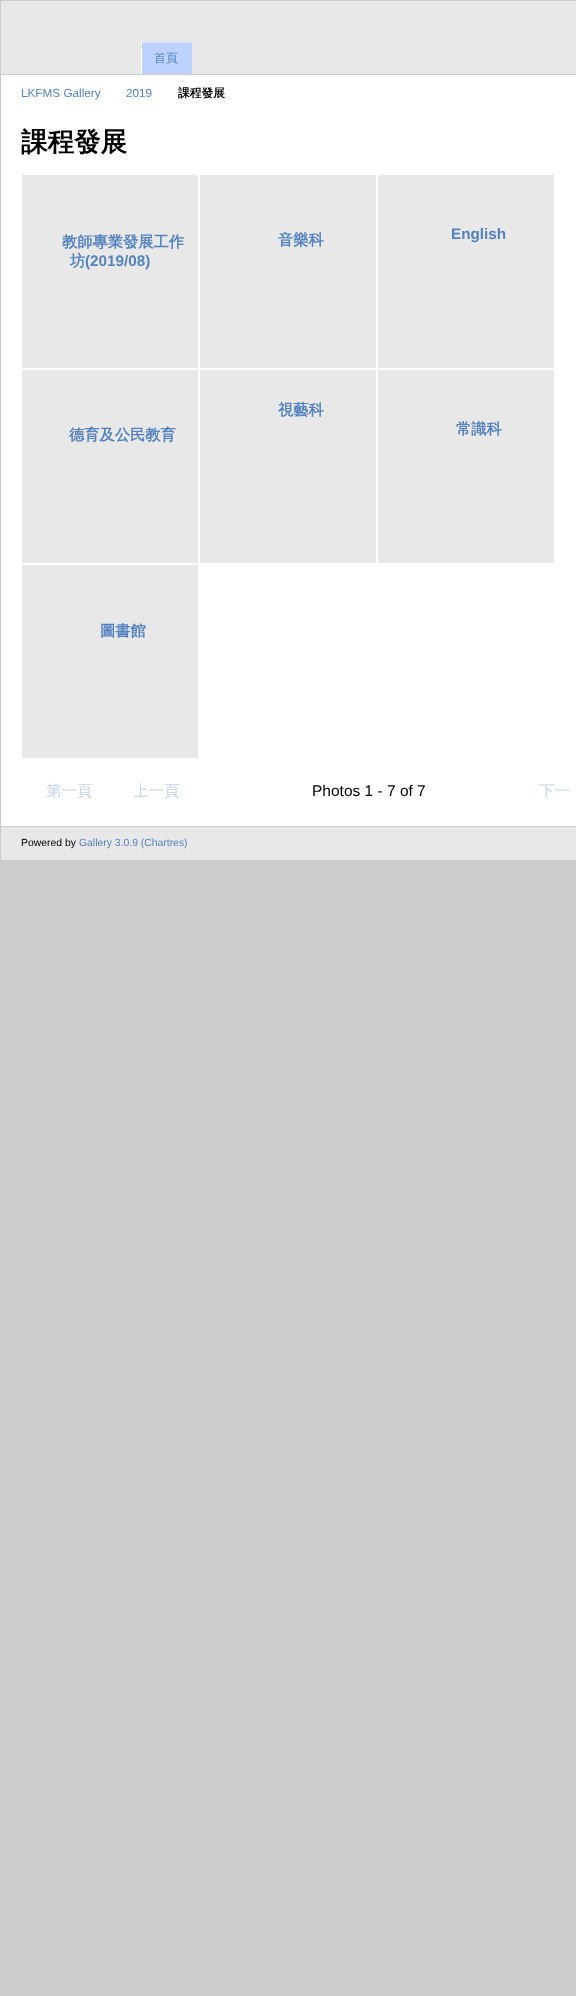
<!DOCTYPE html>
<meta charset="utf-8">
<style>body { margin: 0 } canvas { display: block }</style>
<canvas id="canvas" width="576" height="1996"></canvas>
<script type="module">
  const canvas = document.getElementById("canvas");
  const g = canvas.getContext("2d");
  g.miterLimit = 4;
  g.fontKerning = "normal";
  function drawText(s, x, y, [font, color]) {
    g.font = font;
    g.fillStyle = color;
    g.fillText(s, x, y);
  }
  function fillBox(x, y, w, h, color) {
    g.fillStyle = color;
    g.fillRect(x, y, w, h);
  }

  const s1 = ["500 12px WenQuanYi Zen Hei", "#5382BF"];
  const s2 = ["11.75px Liberation Sans", "#5382BF"];
  const s3 = ["bold 11.75px WenQuanYi Zen Hei", "#000000"];
  const s4 = ["bold 26.5px WenQuanYi Zen Hei", "#000000"];
  const s5 = ["bold 15.25px WenQuanYi Zen Hei", "#5382BF"];
  const s6 = ["bold 15.25px Liberation Sans", "#5382BF"];
  const s7 = ["500 15.5px WenQuanYi Zen Hei", "#C3D3E9"];
  const s8 = ["15.5px Liberation Sans", "#000000"];
  const s9 = ["10.4px Liberation Sans", "#000000"];
  const s10 = ["10.4px Liberation Sans", "#5382BF"];

  fillBox(0, 0, 576, 1996, "#CCCCCC");
  fillBox(1, 75, 575, 751, "#FFFFFF");
  fillBox(1, 1, 575, 73, "#E8E8E8");
  fillBox(142, 43, 50, 31, "#BDD2FF");
  fillBox(141, 42, 51, 1, "#CFDEFF");
  fillBox(141, 42, 1, 32, "#FFFFFF");
  drawText("首頁", 154, 62, s1);
  drawText("LKFMS Gallery", 21, 97, s2);
  drawText("2019", 126, 97, s2);
  drawText("課程發展", 178, 97, s3);
  drawText("課程發展", 21, 151, s4);
  fillBox(22, 175, 176, 193, "#E8E8E8");
  drawText("教師專業發展工作", 62, 247, s5);
  drawText("坊", 70, 266, s5);
  drawText("(2019/08)", 85, 266, s6);
  fillBox(200, 175, 176, 193, "#E8E8E8");
  drawText("音樂科", 278, 245, s5);
  fillBox(378, 175, 176, 193, "#E8E8E8");
  drawText("English", 451, 239, s6);
  fillBox(200, 370, 176, 193, "#E8E8E8");
  drawText("視藝科", 278, 415, s5);
  fillBox(22, 370, 176, 193, "#E8E8E8");
  drawText("德育及公民教育", 69, 440, s5);
  fillBox(378, 370, 176, 193, "#E8E8E8");
  drawText("常識科", 456, 434, s5);
  fillBox(22, 565, 176, 193, "#E8E8E8");
  drawText("圖書館", 100, 636, s5);
  drawText("第一頁", 46, 796, s7);
  drawText("上一頁", 133, 796, s7);
  drawText("Photos 1 - 7 of 7", 312, 796, s8);
  drawText("下一", 539, 796, s7);
  fillBox(1, 827, 575, 33, "#E8E8E8");
  drawText("Powered by", 21, 846, s9);
  drawText("Gallery 3.0.9 (Chartres)", 79, 846, s10);
</script>
